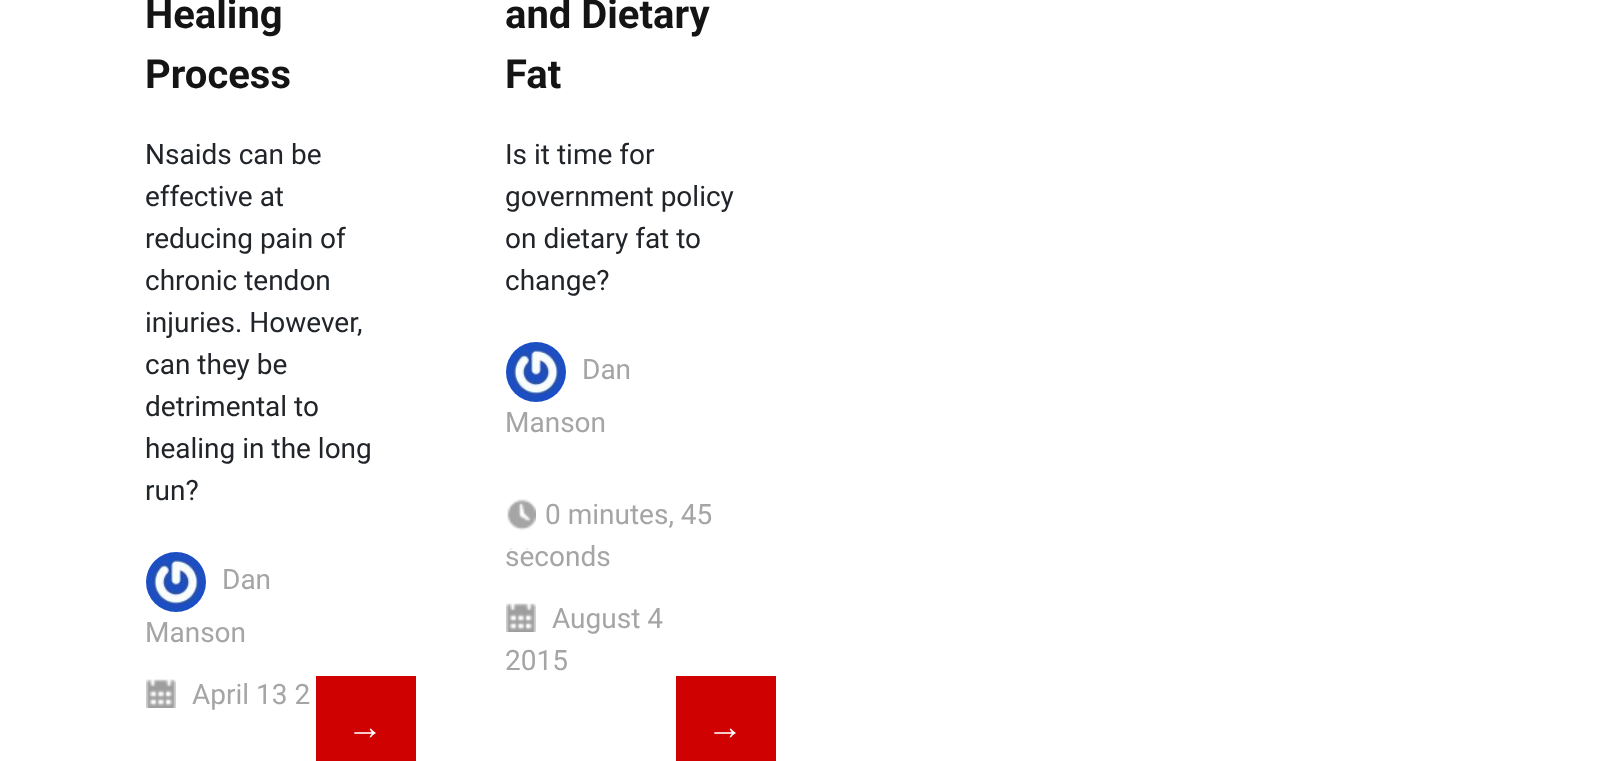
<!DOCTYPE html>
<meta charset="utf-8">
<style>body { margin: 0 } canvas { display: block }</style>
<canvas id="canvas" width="1609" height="761"></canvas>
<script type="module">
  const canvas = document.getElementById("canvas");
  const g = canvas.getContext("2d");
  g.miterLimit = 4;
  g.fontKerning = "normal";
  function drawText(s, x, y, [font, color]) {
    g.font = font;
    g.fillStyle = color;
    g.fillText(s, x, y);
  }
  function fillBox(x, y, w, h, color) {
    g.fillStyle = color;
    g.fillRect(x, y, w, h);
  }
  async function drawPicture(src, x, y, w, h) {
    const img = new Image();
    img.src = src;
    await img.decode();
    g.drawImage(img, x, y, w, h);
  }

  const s1 = ["bold 40px Roboto", "#141414"];
  const s2 = ["28px Roboto", "#212529"];
  const s3 = ["28px Roboto", "#A5A5A5"];
  const s4 = ["bold 36px Liberation Sans", "#FFFFFF"];

  fillBox(0, 0, 1609, 761, "#FFFFFF");
  drawText("Healing", 145, 28, s1);
  drawText("Process", 145, 88, s1);
  drawText("Nsaids can be", 145, 164, s2);
  drawText("effective at", 145, 206, s2);
  drawText("reducing pain of", 145, 248, s2);
  drawText("chronic tendon", 145, 290, s2);
  drawText("injuries. However,", 145, 332, s2);
  drawText("can they be", 145, 374, s2);
  drawText("detrimental to", 145, 416, s2);
  drawText("healing in the long", 145, 458, s2);
  drawText("run?", 145, 500, s2);
  await drawPicture("pic1.png", 146, 552, 60, 60);
  drawText("Dan", 222, 589, s3);
  drawText("Manson", 145, 642, s3);
  await drawPicture("pic2.png", 146, 679, 30, 29);
  drawText("April 13 2", 192, 704, s3);
  fillBox(316, 676, 100, 85, "#CF0101");
  drawText("→", 347, 739, s4);
  drawText("and Dietary", 505, 28, s1);
  drawText("Fat", 505, 88, s1);
  drawText("Is it time for", 505, 164, s2);
  drawText("government policy", 505, 206, s2);
  drawText("on dietary fat to", 505, 248, s2);
  drawText("change?", 505, 290, s2);
  await drawPicture("pic3.png", 506, 342, 60, 60);
  drawText("Dan", 582, 379, s3);
  drawText("Manson", 505, 432, s3);
  drawText("seconds", 505, 566, s3);
  await drawPicture("pic4.png", 507, 499, 29, 51);
  drawText("0 minutes, 45", 545, 524, s3);
  await drawPicture("pic2.png", 506, 603, 30, 29);
  drawText("August 4", 552, 628, s3);
  drawText("2015", 505, 670, s3);
  fillBox(676, 676, 100, 85, "#CF0101");
  drawText("→", 707, 739, s4);
</script>
